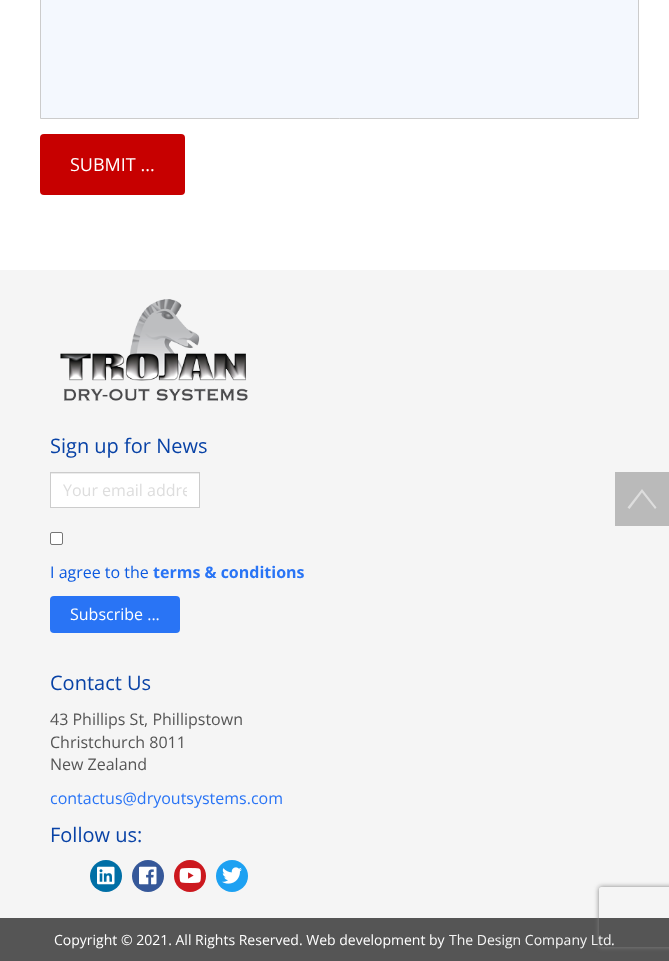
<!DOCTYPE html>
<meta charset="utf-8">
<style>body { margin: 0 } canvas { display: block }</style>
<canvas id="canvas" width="669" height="961"></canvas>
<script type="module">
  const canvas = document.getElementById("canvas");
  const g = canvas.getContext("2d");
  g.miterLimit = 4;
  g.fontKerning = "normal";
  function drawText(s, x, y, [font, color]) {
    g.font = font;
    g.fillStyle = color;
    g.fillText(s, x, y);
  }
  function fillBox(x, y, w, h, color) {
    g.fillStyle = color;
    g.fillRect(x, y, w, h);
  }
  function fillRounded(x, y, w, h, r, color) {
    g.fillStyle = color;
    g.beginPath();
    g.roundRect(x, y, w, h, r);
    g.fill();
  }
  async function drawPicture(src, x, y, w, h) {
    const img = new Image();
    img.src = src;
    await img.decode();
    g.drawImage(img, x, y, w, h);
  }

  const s1 = ["18px Open Sans", "#FFFFFF"];
  const s2 = ["20px Open Sans", "#0842A6"];
  const s3 = ["16px Open Sans", "#DDDDDD"];
  const s4 = ["16px Open Sans", "#0B59E0"];
  const s5 = ["bold 16px Open Sans", "#2974F5"];
  const s6 = ["16px Open Sans", "#FFFFFF"];
  const s7 = ["16px Open Sans", "#555555"];
  const s8 = ["16px Open Sans", "#2974F5"];
  const s9 = ["14px Open Sans", "#FFFFFF"];
  const s10 = ["14px Open Sans", "#F5F5F5"];

  fillBox(0, 0, 669, 961, "#FFFFFF");
  g.fillStyle = "#F4F8FE";
  g.beginPath();
  g.rect(40.5, -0.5, 598, 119);
  g.fill();
  g.strokeStyle = "#CCCCCC";
  g.stroke();
  fillRounded(40, 134, 145, 61, 4, "#C70000");
  drawText("SUBMIT ...", 70, 171, s1);
  fillBox(0, 270, 669, 648, "#F5F5F5");
  await drawPicture("pic1.png", 60, 299, 188, 102);
  drawText("Sign up for News", 50, 453, s2);
  fillBox(51, 474, 148, 33, "#FFFFFF");
  fillBox(51, 473, 148, 1, "#ECECEC");
  g.strokeRect(50.5, 472.5, 149, 35);
  g.save();
  g.beginPath();
  g.rect(63, 479, 124, 22);
  g.clip();
  drawText("Your email addre", 63, 496, s3);
  g.restore();
  g.fillStyle = "#FFFFFF";
  g.beginPath();
  g.roundRect(50.5, 532.5, 12, 12, 1.5);
  g.fill();
  g.strokeStyle = "#767676";
  g.stroke();
  drawText("I agree to the", 50, 578, s4);
  drawText("terms & conditions", 153, 578, s5);
  fillRounded(50, 596, 130, 37, 4, "#2974F5");
  drawText("Subscribe ...", 70, 620, s6);
  drawText("Contact Us", 50, 690, s2);
  drawText("43 Phillips St, Phillipstown", 50, 725, s7);
  drawText("Christchurch 8011", 50, 748, s7);
  drawText("New Zealand", 50, 770, s7);
  drawText("contactus@dryoutsystems.com", 50, 804, s8);
  drawText("Follow us:", 50, 842, s2);
  g.fillStyle = "#006FA6";
  g.beginPath();
  g.arc(106, 876, 16, 0, Math.PI * 2);
  g.fill();
  await drawPicture("pic2.png", 97, 866, 18, 19);
  g.fillStyle = "#365899";
  g.beginPath();
  g.arc(148, 876, 16, 0, Math.PI * 2);
  g.fill();
  await drawPicture("pic3.png", 139, 866, 18, 19);
  g.fillStyle = "#CC181E";
  g.beginPath();
  g.arc(190, 876, 16, 0, Math.PI * 2);
  g.fill();
  await drawPicture("pic4.png", 179, 868, 22, 15);
  g.fillStyle = "#1DA1F2";
  g.beginPath();
  g.arc(232, 876, 16, 0, Math.PI * 2);
  g.fill();
  await drawPicture("pic5.png", 222, 867, 20, 17);
  fillBox(0, 918, 669, 43, "#555555");
  drawText("Copyright © 2021. All Rights Reserved. Web development by", 54, 945, s9);
  drawText("The Design Company Ltd", 449, 945, s10);
  drawText(".", 611, 945, s9);
  fillBox(615, 472, 54, 54, "#BABABA");
  g.fillStyle = "#DDDDDD";
  g.beginPath();
  g.moveTo(642, 489);
  g.lineTo(656.5, 507.5);
  g.lineTo(655, 509);
  g.lineTo(642, 492.5);
  g.lineTo(629.5, 509);
  g.lineTo(627.5, 507.5);
  g.closePath();
  g.fill();
  g.save();
  g.beginPath();
  g.moveTo(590, 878);
  g.lineTo(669, 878);
  g.lineTo(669, 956);
  g.lineTo(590, 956);
  g.closePath();
  g.moveTo(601, 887);
  g.lineTo(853, 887);
  g.bezierCurveTo(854, 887, 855, 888, 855, 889);
  g.lineTo(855, 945);
  g.bezierCurveTo(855, 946, 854, 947, 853, 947);
  g.lineTo(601, 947);
  g.bezierCurveTo(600, 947, 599, 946, 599, 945);
  g.lineTo(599, 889);
  g.bezierCurveTo(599, 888, 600, 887, 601, 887);
  g.closePath();
  g.clip("evenodd");
  g.fillStyle = "#808080";
  g.filter = "blur(2.5px)";
  g.beginPath();
  g.roundRect(599, 887, 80, 60, 2);
  g.fill();
  g.filter = "none";
  g.restore();
</script>
